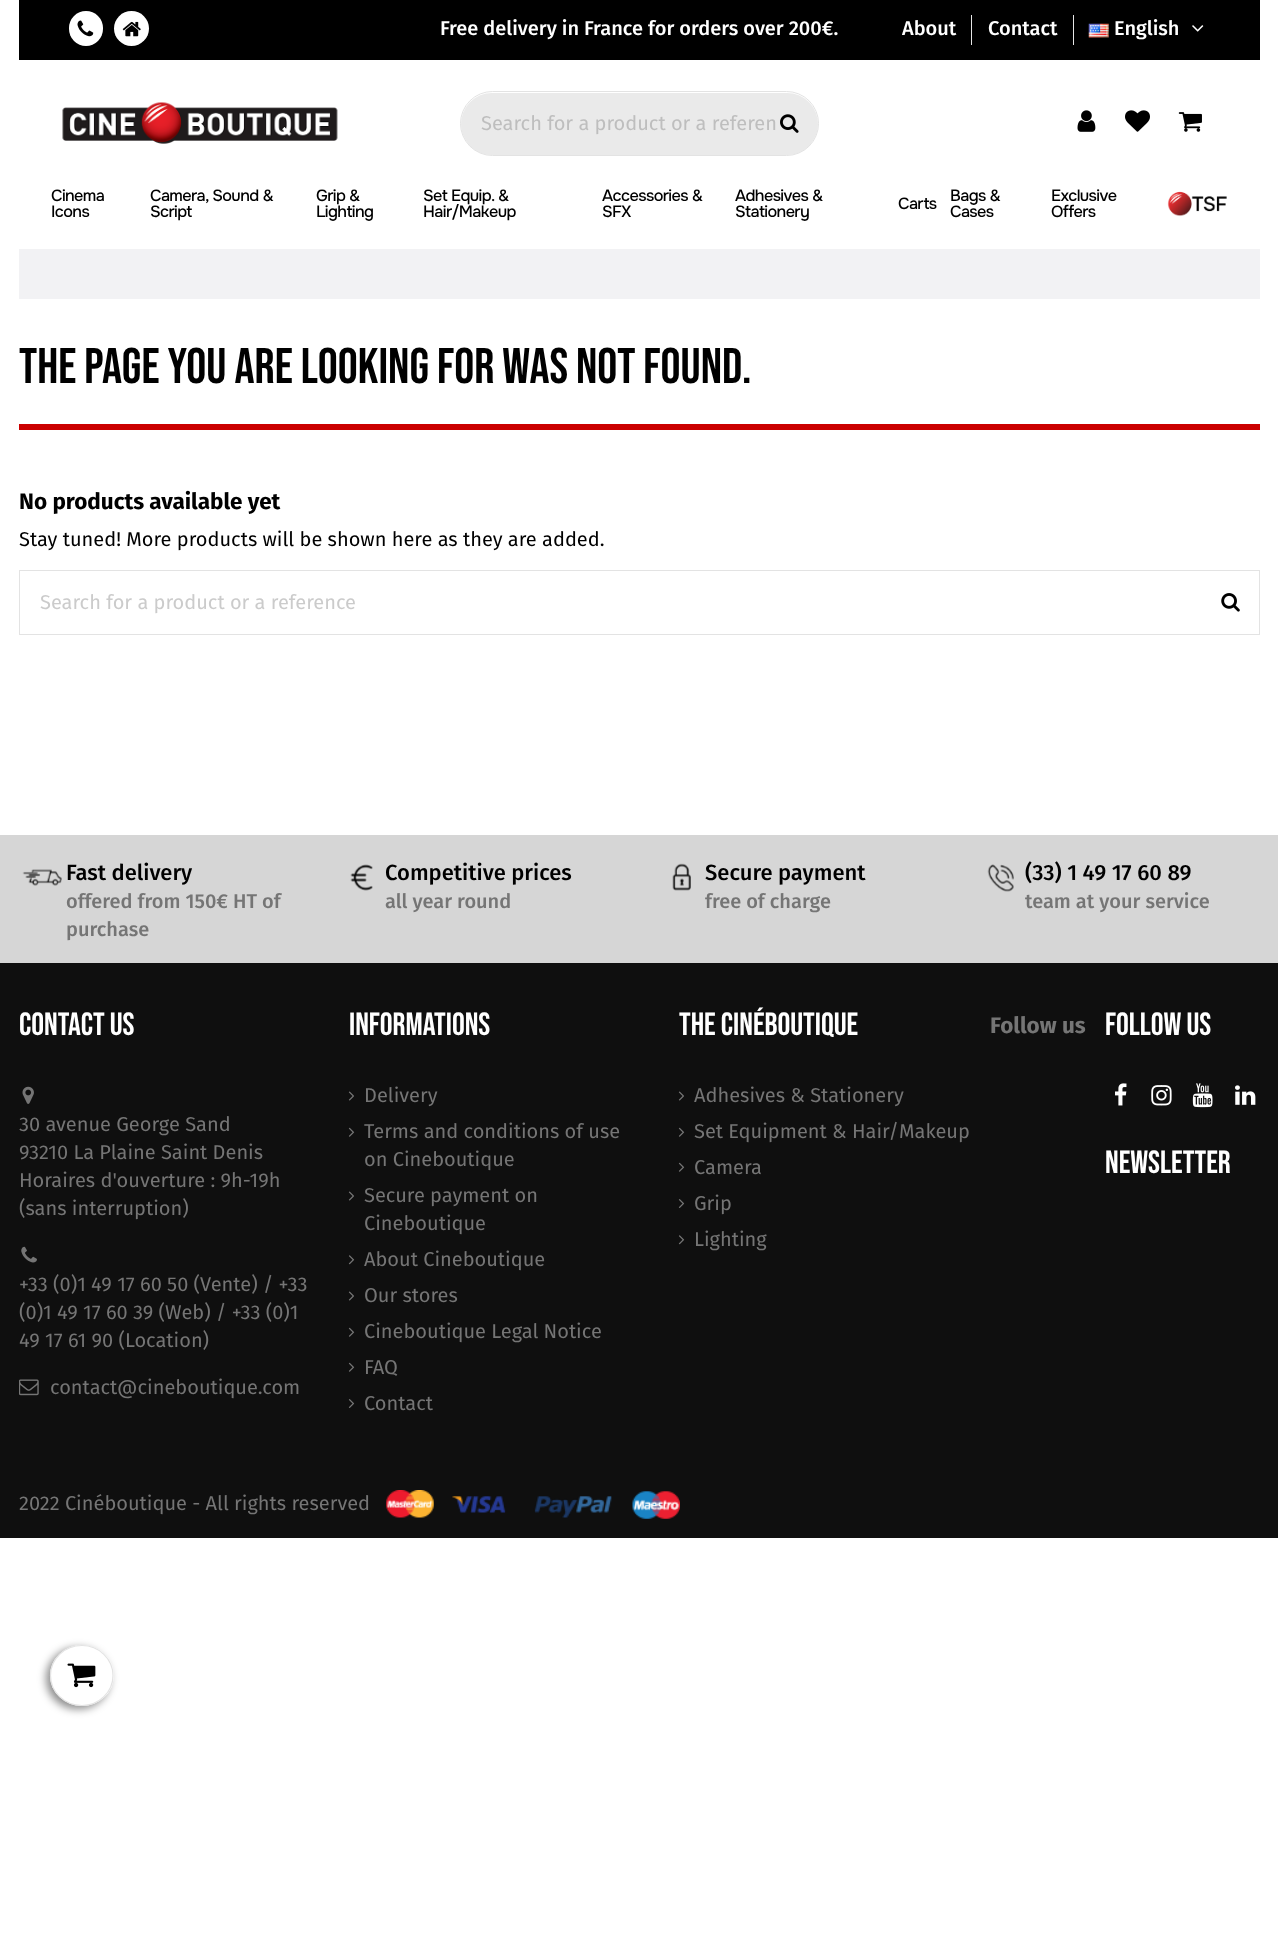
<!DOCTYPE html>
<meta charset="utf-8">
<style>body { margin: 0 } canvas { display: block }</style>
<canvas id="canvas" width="1278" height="1934"></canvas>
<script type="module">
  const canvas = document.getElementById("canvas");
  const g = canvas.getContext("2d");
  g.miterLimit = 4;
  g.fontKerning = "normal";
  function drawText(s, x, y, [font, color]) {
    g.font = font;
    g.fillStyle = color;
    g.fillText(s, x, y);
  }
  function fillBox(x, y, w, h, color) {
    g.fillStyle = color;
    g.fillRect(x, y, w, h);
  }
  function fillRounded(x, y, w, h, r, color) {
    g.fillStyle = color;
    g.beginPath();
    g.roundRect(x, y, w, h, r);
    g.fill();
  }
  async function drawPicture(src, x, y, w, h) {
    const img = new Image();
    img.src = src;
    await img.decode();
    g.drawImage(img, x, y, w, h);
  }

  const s1 = ["500 20px Fira Sans", "#FFFFFF"];
  const s2 = ["20px Fira Sans", "#BEBEBE"];
  const s3 = ["500 16.25px Onest", "#000000"];
  const s4 = ["50px Bebas Neue", "#000000"];
  const s5 = ["bold 22.5px Fira Sans", "#000000"];
  const s6 = ["20px Fira Sans", "#000000"];
  const s7 = ["20px Fira Sans", "#CBCBCB"];
  const s8 = ["500 22px Fira Sans", "#000000"];
  const s9 = ["500 20px Fira Sans", "#757575"];
  const s10 = ["32px Bebas Neue", "#FFFFFF"];
  const s11 = ["20px Fira Sans", "#757575"];
  const s12 = ["bold 22.5px Fira Sans", "#757575"];

  fillBox(0, 0, 1278, 1934, "#FFFFFF");
  fillBox(19, 0, 1241, 60, "#000000");
  fillRounded(69, 11, 34, 35, 17, "#FFFFFF");
  await drawPicture("pic1.png", 77, 20, 17, 17);
  g.beginPath();
  g.arc(131.5, 28.5, 17.5, 0, Math.PI * 2);
  g.fill();
  await drawPicture("pic2.png", 122, 21, 19, 16);
  drawText("Free delivery in France for orders over 200€.", 440, 35, s1);
  drawText("About", 902, 35, s1);
  fillBox(971, 15, 1, 30, "#E6E6E6");
  drawText("Contact", 988, 35, s1);
  fillBox(1073, 15, 1, 30, "#E6E6E6");
  await drawPicture("pic3.png", 1088, 23, 21, 15);
  drawText("English", 1114, 35, s1);
  await drawPicture("pic4.png", 1192, 25, 12, 7);
  await drawPicture("pic5.png", 62, 102, 276, 42);
  fillRounded(461, 93, 357, 62, 31, "#EAEAEA");
  g.beginPath();
  g.roundRect(460.5, 91.5, 358, 64, 32);
  g.strokeStyle = "#E3E3E3";
  g.stroke();
  drawText("Search for a product or a referen", 481, 130, s2);
  await drawPicture("pic6.png", 780, 114, 19, 19);
  await drawPicture("pic7.png", 1077, 110, 19, 22);
  await drawPicture("pic8.png", 1125, 110, 25, 22);
  await drawPicture("pic9.png", 1178, 112, 24, 20);
  g.letterSpacing = "-0.6px";
  drawText("Cinema", 51, 201, s3);
  drawText("Icons", 51, 217, s3);
  drawText("Camera, Sound &", 150, 201, s3);
  drawText("Script", 150, 217, s3);
  drawText("Grip &", 316, 201, s3);
  drawText("Lighting", 316, 217, s3);
  drawText("Set Equip. &", 423, 201, s3);
  drawText("Hair/Makeup", 423, 217, s3);
  drawText("Accessories &", 602, 201, s3);
  drawText("SFX", 602, 217, s3);
  drawText("Adhesives &", 735, 201, s3);
  drawText("Stationery", 735, 217, s3);
  drawText("Carts", 898, 209, s3);
  drawText("Bags &", 950, 201, s3);
  drawText("Cases", 950, 217, s3);
  drawText("Exclusive", 1051, 201, s3);
  drawText("Offers", 1051, 217, s3);
  await drawPicture("pic10.png", 1167, 191, 60, 26);
  g.fillStyle = "rgba(0, 0, 0, 0.45)";
  g.filter = "blur(4px)";
  g.beginPath();
  g.roundRect(46, 1648, 64, 61, 30.5);
  g.fill();
  g.filter = "none";
  g.fillStyle = "#FFFFFF";
  g.beginPath();
  g.ellipse(82, 1675.5, 32, 30.5, 0, 0, Math.PI * 2);
  g.fill();
  g.beginPath();
  g.moveTo(82, 1645.5);
  g.bezierCurveTo(99, 1645.5, 113, 1659, 113, 1675.5);
  g.bezierCurveTo(113, 1692, 99, 1705.5, 82, 1705.5);
  g.bezierCurveTo(64.5, 1705.5, 50.5, 1692, 50.5, 1675.5);
  g.bezierCurveTo(50.5, 1659, 64.5, 1645.5, 82, 1645.5);
  g.closePath();
  g.lineWidth = 1.2;
  g.stroke();
  await drawPicture("pic11.png", 67, 1663, 29, 25);
  fillBox(19, 249, 1241, 50, "#F2F2F4");
  fillBox(19, 424, 1241, 6, "#CB0000");
  g.letterSpacing = "0px";
  drawText("The page you are looking for was not found.", 19, 383, s4);
  drawText("No products available yet", 19, 509, s5);
  drawText("Stay tuned! More products will be shown here as they are added.", 19, 546, s6);
  g.lineWidth = 1;
  g.strokeRect(19.5, 570.5, 1240, 64);
  drawText("Search for a product or a reference", 40, 609, s7);
  await drawPicture("pic12.png", 1221, 593, 19, 19);
  fillBox(0, 835, 1278, 128, "#D6D6D6");
  await drawPicture("pic13.png", 22, 869, 40, 17);
  drawText("Fast delivery", 66, 880, s8);
  drawText("offered from 150€ HT of", 66, 908, s9);
  drawText("purchase", 66, 936, s9);
  await drawPicture("pic14.png", 350, 864, 23, 27);
  drawText("Competitive prices", 385, 880, s8);
  drawText("all year round", 385, 908, s9);
  await drawPicture("pic15.png", 672, 863, 19, 28);
  drawText("Secure payment", 705, 880, s8);
  drawText("free of charge", 705, 908, s9);
  await drawPicture("pic16.png", 987, 864, 27, 28);
  drawText("(33) 1 49 17 60 89", 1025, 880, s8);
  drawText("team at your service", 1025, 908, s9);
  fillBox(0, 963, 1278, 575, "#0F0F0F");
  drawText("CONTACT US", 19, 1035, s10);
  await drawPicture("pic17.png", 22, 1086, 12, 18);
  drawText("30 avenue George Sand", 19, 1131, s11);
  drawText("93210 La Plaine Saint Denis", 19, 1159, s11);
  drawText("Horaires d'ouverture : 9h-19h", 19, 1187, s11);
  drawText("(sans interruption)", 19, 1215, s11);
  await drawPicture("pic18.png", 21, 1246, 16, 17);
  drawText("+33 (0)1 49 17 60 50 (Vente) / +33", 19, 1291, s11);
  drawText("(0)1 49 17 60 39 (Web) / +33 (0)1", 19, 1319, s11);
  drawText("49 17 61 90 (Location)", 19, 1347, s11);
  await drawPicture("pic19.png", 19, 1379, 20, 17);
  drawText("contact@cineboutique.com", 50, 1394, s11);
  drawText("INFORMATIONS", 349, 1035, s10);
  await drawPicture("pic20.png", 348, 1091, 6, 10);
  drawText("Delivery", 364, 1102, s11);
  await drawPicture("pic21.png", 348, 1127, 7, 10);
  drawText("Terms and conditions of use", 364, 1138, s11);
  drawText("on Cineboutique", 364, 1166, s11);
  await drawPicture("pic20.png", 348, 1191, 6, 10);
  drawText("Secure payment on", 364, 1202, s11);
  drawText("Cineboutique", 364, 1230, s11);
  await drawPicture("pic22.png", 348, 1255, 7, 10);
  drawText("About Cineboutique", 364, 1266, s11);
  await drawPicture("pic20.png", 348, 1291, 6, 10);
  drawText("Our stores", 364, 1302, s11);
  await drawPicture("pic21.png", 348, 1327, 7, 10);
  drawText("Cineboutique Legal Notice", 364, 1338, s11);
  await drawPicture("pic21.png", 348, 1362, 7, 10);
  drawText("FAQ", 364, 1374, s11);
  await drawPicture("pic23.png", 348, 1399, 7, 9);
  drawText("Contact", 364, 1410, s11);
  drawText("THE CINÉBOUTIQUE", 679, 1035, s10);
  await drawPicture("pic20.png", 678, 1091, 6, 10);
  drawText("Adhesives & Stationery", 694, 1102, s11);
  await drawPicture("pic21.png", 678, 1127, 7, 10);
  drawText("Set Equipment & Hair/Makeup", 694, 1138, s11);
  await drawPicture("pic21.png", 678, 1162, 7, 10);
  drawText("Camera", 694, 1174, s11);
  await drawPicture("pic23.png", 678, 1199, 7, 9);
  drawText("Grip", 694, 1210, s11);
  await drawPicture("pic22.png", 678, 1235, 7, 10);
  drawText("Lighting", 694, 1246, s11);
  drawText("Follow us", 990, 1033, s12);
  drawText("FOLLOW US", 1105, 1035, s10);
  await drawPicture("pic24.png", 1115, 1083, 12, 23);
  await drawPicture("pic25.png", 1151, 1085, 21, 21);
  await drawPicture("pic26.png", 1192, 1083, 21, 25);
  await drawPicture("pic27.png", 1235, 1085, 21, 20);
  drawText("NEWSLETTER", 1105, 1173, s10);
  drawText("2022 Cinéboutique - All rights reserved", 19, 1510, s11);
  await drawPicture("pic28.png", 386, 1490, 294, 29);
</script>
